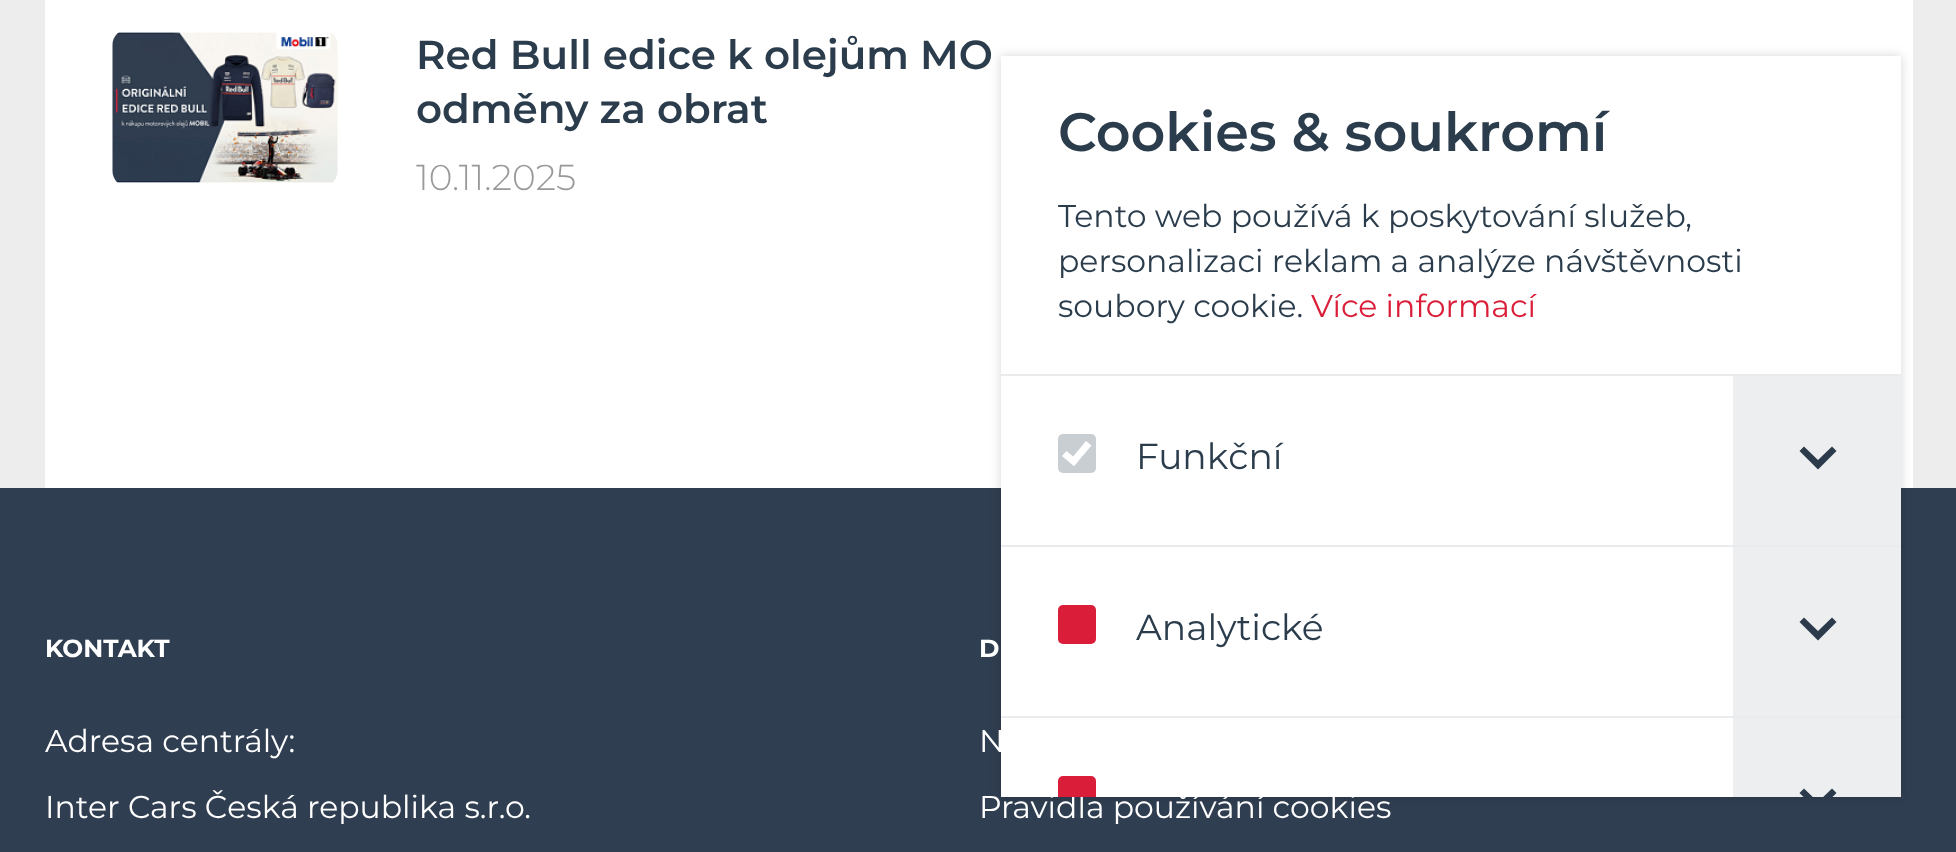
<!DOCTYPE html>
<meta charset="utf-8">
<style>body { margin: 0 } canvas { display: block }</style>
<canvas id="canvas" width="1956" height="852"></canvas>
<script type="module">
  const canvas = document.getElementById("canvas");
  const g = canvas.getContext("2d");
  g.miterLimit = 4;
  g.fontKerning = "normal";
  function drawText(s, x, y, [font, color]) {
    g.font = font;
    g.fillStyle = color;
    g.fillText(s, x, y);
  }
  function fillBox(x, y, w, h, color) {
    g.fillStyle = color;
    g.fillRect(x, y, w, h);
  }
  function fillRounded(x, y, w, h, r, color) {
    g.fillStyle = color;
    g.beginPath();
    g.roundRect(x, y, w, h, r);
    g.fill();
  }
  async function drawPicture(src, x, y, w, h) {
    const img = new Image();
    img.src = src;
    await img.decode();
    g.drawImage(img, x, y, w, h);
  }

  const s1 = ["600 40.5px Montserrat", "#2B3D4C"];
  const s2 = ["300 36px Montserrat", "#999999"];
  const s3 = ["600 54px Montserrat", "#2B3D4C"];
  const s4 = ["31.5px Montserrat", "#2B3D4C"];
  const s5 = ["31.5px Montserrat", "#DA1E39"];
  const s6 = ["36px Montserrat", "#2B3D4C"];
  const s7 = ["31.5px Montserrat", "#FFFFFF"];
  const s8 = ["bold 24.75px Montserrat", "#FFFFFF"];

  fillBox(0, 0, 1956, 852, "#EDEDED");
  fillBox(45, 0, 1868, 488, "#FFFFFF");
  await drawPicture("pic1.png", 112, 32, 226, 151);
  drawText("Red Bull edice k olejům MO", 416, 69, s1);
  drawText("odměny za obrat", 416, 123, s1);
  drawText("10.11.2025", 416, 190, s2);
  fillBox(0, 488, 1956, 364, "#303E51");
  g.fillStyle = "rgba(0, 0, 0, 0.16)";
  g.filter = "blur(5.5px)";
  g.beginPath();
  g.rect(1001, 56, 900, 741);
  g.fill();
  g.filter = "none";
  fillBox(1001, 56, 900, 741, "#FFFFFF");
  drawText("Cookies & soukromí", 1058, 151, s3);
  drawText("Tento web používá k poskytování služeb,", 1058, 227, s4);
  drawText("personalizaci reklam a analýze návštěvnosti", 1058, 272, s4);
  drawText("soubory cookie.", 1058, 317, s4);
  drawText("Více informací", 1311, 317, s5);
  fillBox(1001, 374, 900, 2, "#EAEBED");
  fillRounded(1058, 434, 38, 39, 5, "#C9CED3");
  g.fillStyle = "#FFFFFF";
  g.beginPath();
  g.moveTo(1086, 441);
  g.lineTo(1091.5, 445.5);
  g.lineTo(1074, 466);
  g.lineTo(1069, 461.5);
  g.closePath();
  g.fill();
  g.beginPath();
  g.moveTo(1066.5, 451);
  g.lineTo(1078.5, 461);
  g.lineTo(1074, 466);
  g.lineTo(1062, 456);
  g.closePath();
  g.fill();
  drawText("Funkční", 1136, 469, s6);
  fillBox(1733, 376, 168, 169, "#EDEEEF");
  g.fillStyle = "#2C3B4C";
  g.beginPath();
  g.moveTo(1832, 446.5);
  g.lineTo(1836.5, 451);
  g.lineTo(1818, 469.5);
  g.lineTo(1799.5, 451);
  g.lineTo(1804, 446.5);
  g.lineTo(1818, 460);
  g.closePath();
  g.fill();
  fillBox(1001, 545, 900, 2, "#EAEBED");
  fillRounded(1058, 605, 38, 39, 5, "#DA1E39");
  drawText("Analytické", 1136, 640, s6);
  fillBox(1733, 547, 168, 169, "#EDEEEF");
  g.fillStyle = "#2C3B4C";
  g.beginPath();
  g.moveTo(1832, 617.5);
  g.lineTo(1836.5, 622);
  g.lineTo(1818, 640.5);
  g.lineTo(1799.5, 622);
  g.lineTo(1804, 617.5);
  g.lineTo(1818, 631);
  g.closePath();
  g.fill();
  fillBox(1001, 716, 900, 2, "#EAEBED");
  drawText("Pravidla používání cookies", 979, 818, s7);
  g.fillStyle = "#DA1E39";
  g.beginPath();
  g.roundRect(1058, 776, 38, 21, [5, 5, 0, 0]);
  g.fill();
  fillBox(1733, 718, 168, 79, "#EDEEEF");
  g.save();
  g.beginPath();
  g.rect(1798, 788, 40, 9);
  g.clip();
  g.fillStyle = "#2C3B4C";
  g.beginPath();
  g.moveTo(1832, 788.5);
  g.lineTo(1836.5, 793);
  g.lineTo(1818, 811.5);
  g.lineTo(1799.5, 793);
  g.lineTo(1804, 788.5);
  g.lineTo(1818, 802);
  g.closePath();
  g.fill();
  g.restore();
  drawText("KONTAKT", 45, 657, s8);
  drawText("Adresa centrály:", 45, 752, s7);
  drawText("Inter Cars Česká republika s.r.o.", 45, 818, s7);
  drawText("D", 979, 657, s8);
  drawText("N", 979, 752, s7);
</script>
